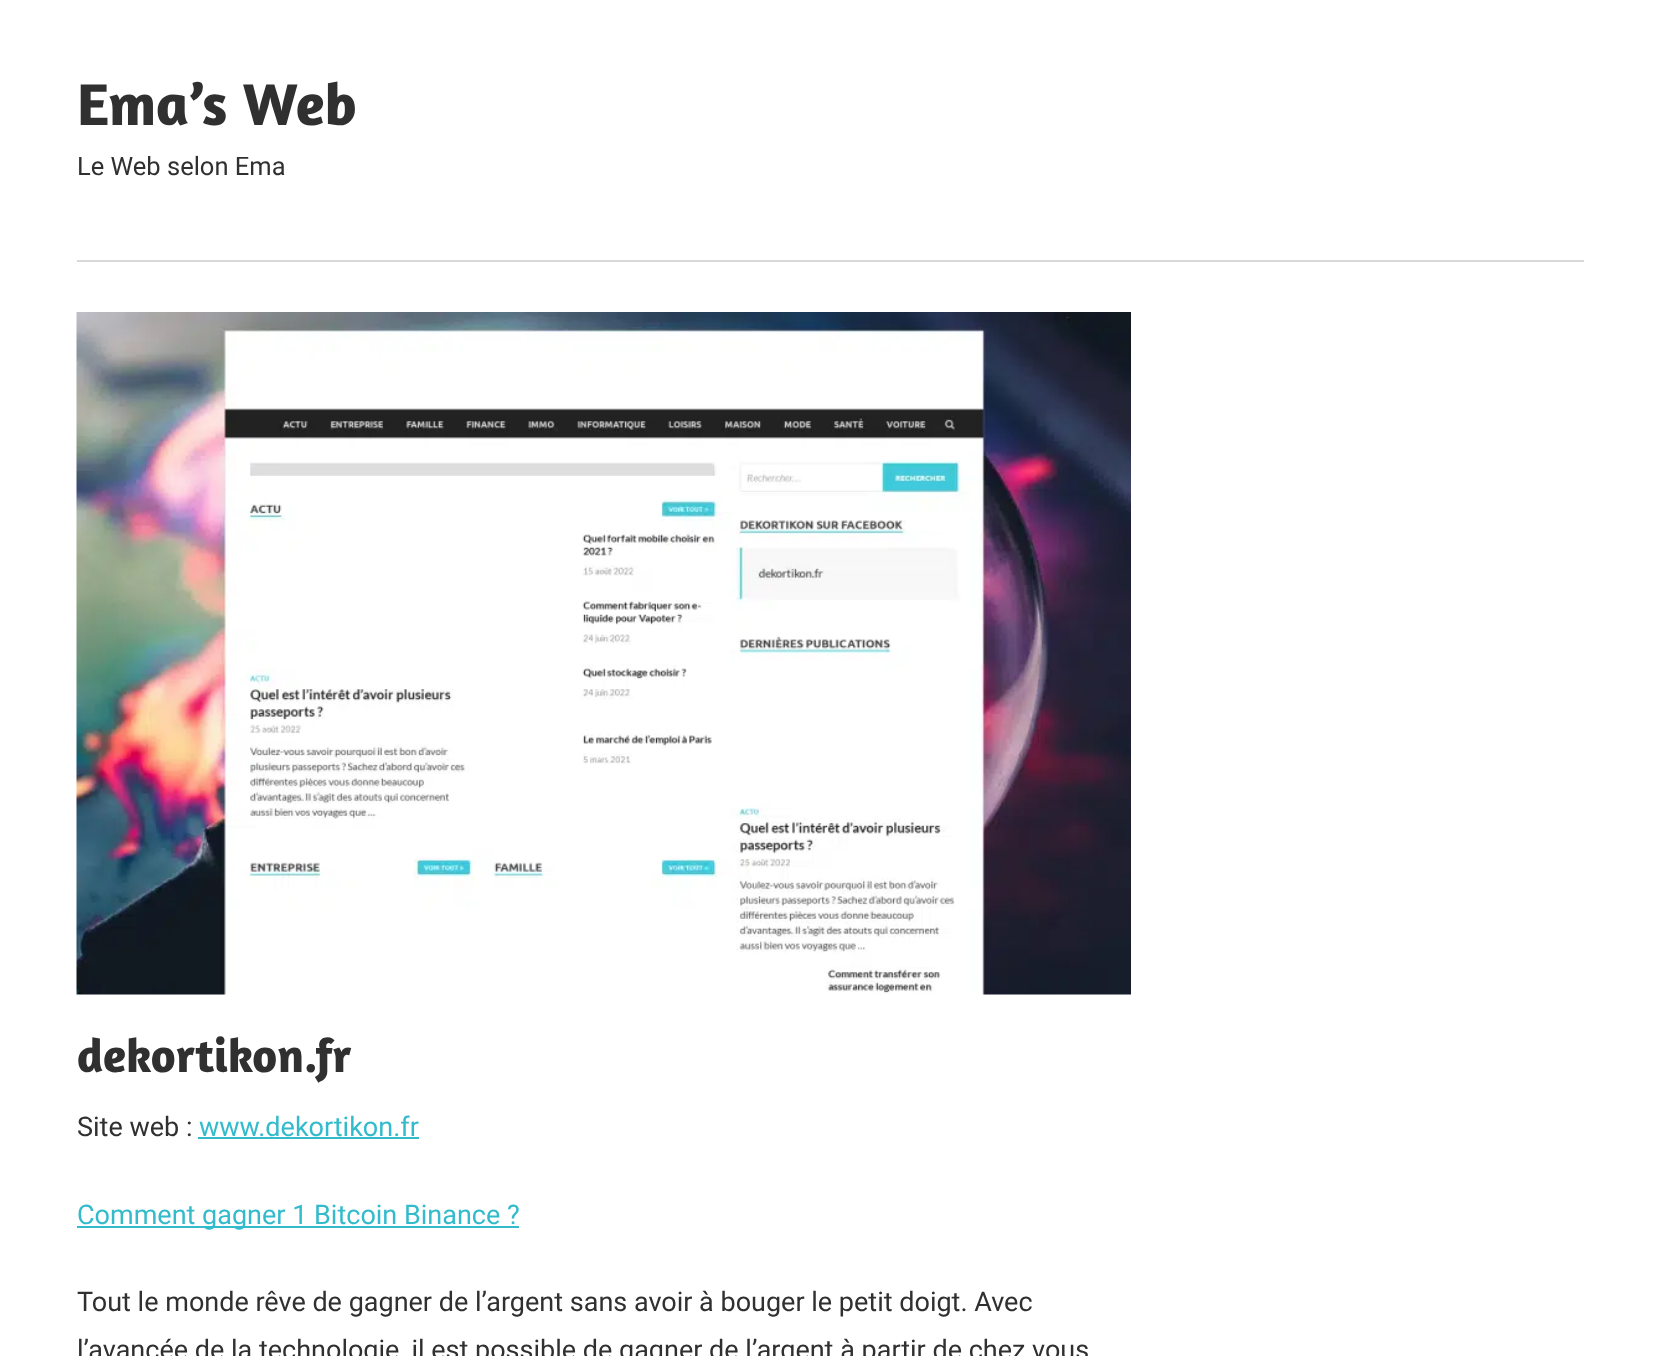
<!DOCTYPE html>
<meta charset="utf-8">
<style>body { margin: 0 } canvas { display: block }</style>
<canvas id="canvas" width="1660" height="1356"></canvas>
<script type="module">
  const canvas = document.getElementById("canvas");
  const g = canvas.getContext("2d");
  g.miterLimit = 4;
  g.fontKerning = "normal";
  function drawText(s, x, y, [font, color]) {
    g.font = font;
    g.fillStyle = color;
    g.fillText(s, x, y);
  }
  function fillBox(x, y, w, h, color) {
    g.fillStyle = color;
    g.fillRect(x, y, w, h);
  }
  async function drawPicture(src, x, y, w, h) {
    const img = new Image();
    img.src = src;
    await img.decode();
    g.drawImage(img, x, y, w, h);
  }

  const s1 = ["bold 60px Amaranth", "#303030"];
  const s2 = ["25.5px Roboto", "#303030"];
  const s3 = ["bold 48px Amaranth", "#303030"];
  const s4 = ["27px Roboto", "#303030"];
  const s5 = ["27px Roboto", "#33BBCC"];

  fillBox(0, 0, 1660, 1356, "#FFFFFF");
  drawText("Ema’s Web", 77, 125, s1);
  drawText("Le Web selon Ema", 77, 175, s2);
  fillBox(77, 260, 1507, 2, "#D9D9D9");
  await drawPicture("pic1.png", 76, 312, 1055, 683);
  drawText("dekortikon.fr", 77, 1072, s3);
  drawText("Site web :", 77, 1136, s4);
  drawText("www.dekortikon.fr", 199, 1136, s5);
  fillBox(198, 1137, 221, 2, "#33BBCC");
  fillBox(77, 1226, 442, 2, "#33BBCC");
  drawText("Comment gagner 1 Bitcoin Binance ?", 77, 1224, s5);
  drawText("Tout le monde rêve de gagner de l’argent sans avoir à bouger le petit doigt. Avec", 77, 1311, s4);
  drawText("l’avancée de la technologie, il est possible de gagner de l’argent à partir de chez vous", 77, 1359, s4);
</script>
